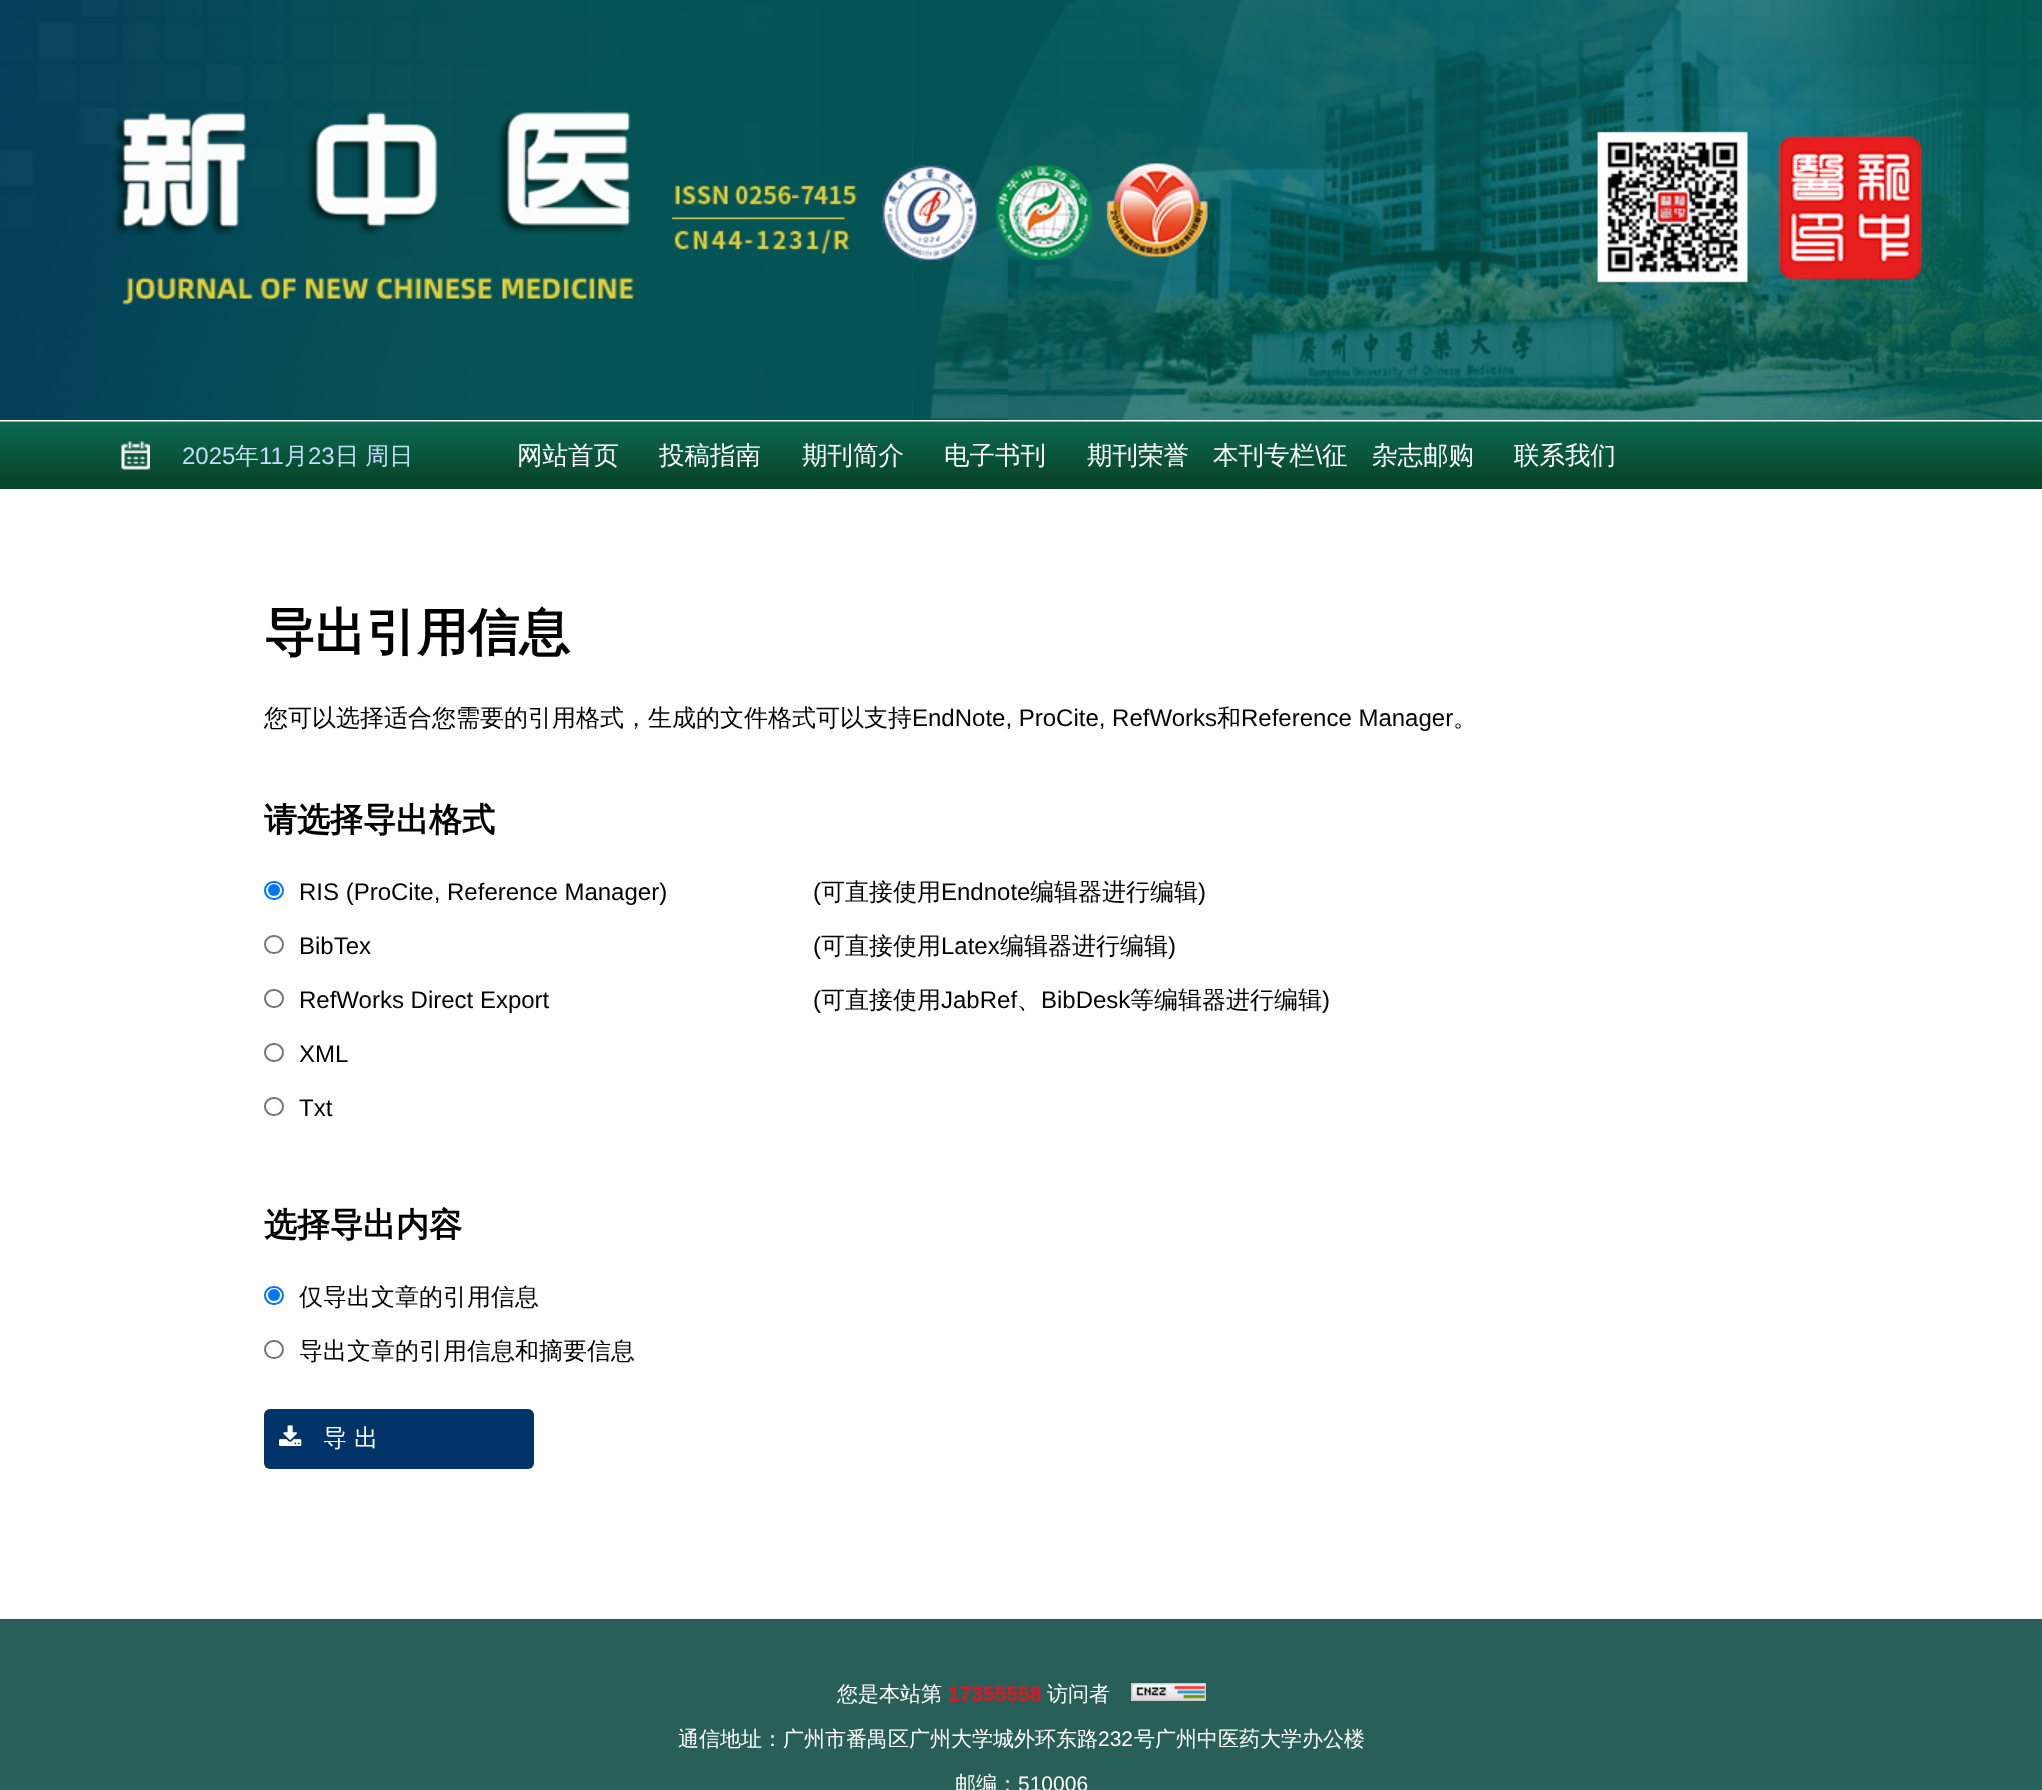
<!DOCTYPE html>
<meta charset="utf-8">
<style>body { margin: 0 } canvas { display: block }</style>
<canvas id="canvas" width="2042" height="1790"></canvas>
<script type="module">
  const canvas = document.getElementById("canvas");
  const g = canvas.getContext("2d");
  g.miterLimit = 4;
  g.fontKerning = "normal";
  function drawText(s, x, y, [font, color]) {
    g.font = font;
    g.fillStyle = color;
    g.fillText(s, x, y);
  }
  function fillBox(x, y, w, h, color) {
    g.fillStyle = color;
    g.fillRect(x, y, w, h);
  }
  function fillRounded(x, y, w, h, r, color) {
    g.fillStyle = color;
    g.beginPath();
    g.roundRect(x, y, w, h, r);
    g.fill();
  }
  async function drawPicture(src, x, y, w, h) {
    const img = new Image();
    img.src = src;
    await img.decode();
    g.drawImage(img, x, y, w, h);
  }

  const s1 = ["24px Liberation Sans", "#C3DEF9"];
  const s2 = ["500 24px WenQuanYi Zen Hei", "#C3DEF9"];
  const s3 = ["500 25.5px WenQuanYi Zen Hei", "#FFFFFF"];
  const s4 = ["25.5px Liberation Sans", "#FFFFFF"];
  const s5 = ["bold 51px WenQuanYi Zen Hei", "#000000"];
  const s6 = ["500 24px WenQuanYi Zen Hei", "#000000"];
  const s7 = ["24px Liberation Sans", "#000000"];
  const s8 = ["bold 33px WenQuanYi Zen Hei", "#000000"];
  const s9 = ["500 24px WenQuanYi Zen Hei", "#FFFFFF"];
  const s10 = ["500 21px WenQuanYi Zen Hei", "#FFFFFF"];
  const s11 = ["bold 21px Liberation Sans", "#E9131D"];
  const s12 = ["21px Liberation Sans", "#FFFFFF"];

  fillBox(0, 0, 2042, 1790, "#FFFFFF");
  await drawPicture("pic1.png", 0, 0, 2042, 420);
  await drawPicture("pic2.png", 0, 421, 2042, 68);
  await drawPicture("pic3.png", 121, 441, 29, 29);
  drawText("2025", 182, 464, s1);
  drawText("年", 235, 464, s2);
  drawText("11", 259, 464, s1);
  drawText("月", 284, 464, s2);
  drawText("23", 308, 464, s1);
  g.wordSpacing = "-1px";
  drawText("日 周日", 335, 464, s2);
  g.wordSpacing = "0px";
  drawText("网站首页", 517, 464, s3);
  drawText("投稿指南", 659, 464, s3);
  drawText("期刊简介", 802, 464, s3);
  drawText("电子书刊", 944, 464, s3);
  drawText("期刊荣誉", 1087, 464, s3);
  drawText("本刊专栏", 1213, 464, s3);
  drawText("\\", 1315, 464, s4);
  drawText("征", 1322, 464, s3);
  drawText("杂志邮购", 1372, 464, s3);
  drawText("联系我们", 1514, 464, s3);
  drawText("导出引用信息", 264, 650, s5);
  drawText("您可以选择适合您需要的引用格式，生成的文件格式可以支持", 264, 726, s6);
  drawText("EndNote, ProCite, RefWorks", 912, 726, s7);
  drawText("和", 1217, 726, s6);
  drawText("Reference Manager", 1241, 726, s7);
  drawText("。", 1453, 726, s6);
  drawText("请选择导出格式", 264, 831, s8);
  g.beginPath();
  g.roundRect(265, 882, 18, 17, 8.5);
  g.strokeStyle = "#0075FF";
  g.lineWidth = 2;
  g.stroke();
  g.fillStyle = "#0075FF";
  g.beginPath();
  g.arc(274, 890, 6, 0, Math.PI * 2);
  g.fill();
  drawText("RIS (ProCite, Reference Manager)", 299, 900, s7);
  drawText("(", 813, 900, s7);
  drawText("可直接使用", 821, 900, s6);
  drawText("Endnote", 941, 900, s7);
  drawText("编辑器进行编辑", 1030, 900, s6);
  drawText(")", 1198, 900, s7);
  g.beginPath();
  g.roundRect(265, 936, 18, 17, 8.5);
  g.strokeStyle = "#767676";
  g.stroke();
  drawText("BibTex", 299, 954, s7);
  drawText("(", 813, 954, s7);
  drawText("可直接使用", 821, 954, s6);
  drawText("Latex", 941, 954, s7);
  drawText("编辑器进行编辑", 1000, 954, s6);
  drawText(")", 1168, 954, s7);
  g.beginPath();
  g.roundRect(265, 990, 18, 17, 8.5);
  g.stroke();
  drawText("RefWorks Direct Export", 299, 1008, s7);
  drawText("(", 813, 1008, s7);
  drawText("可直接使用", 821, 1008, s6);
  drawText("JabRef", 941, 1008, s7);
  drawText("、", 1017, 1008, s6);
  drawText("BibDesk", 1041, 1008, s7);
  drawText("等编辑器进行编辑", 1130, 1008, s6);
  drawText(")", 1322, 1008, s7);
  g.beginPath();
  g.roundRect(265, 1044, 18, 17, 8.5);
  g.stroke();
  drawText("XML", 299, 1062, s7);
  g.beginPath();
  g.roundRect(265, 1098, 18, 17, 8.5);
  g.stroke();
  drawText("Txt", 299, 1116, s7);
  drawText("选择导出内容", 264, 1236, s8);
  g.beginPath();
  g.roundRect(265, 1287, 18, 17, 8.5);
  g.strokeStyle = "#0075FF";
  g.stroke();
  g.fillStyle = "#0075FF";
  g.beginPath();
  g.arc(274, 1295, 6, 0, Math.PI * 2);
  g.fill();
  drawText("仅导出文章的引用信息", 299, 1305, s6);
  g.beginPath();
  g.roundRect(265, 1341, 18, 17, 8.5);
  g.strokeStyle = "#767676";
  g.stroke();
  drawText("导出文章的引用信息和摘要信息", 299, 1359, s6);
  fillRounded(264, 1409, 270, 60, 6, "#003469");
  await drawPicture("pic4.png", 279, 1425, 23, 21);
  drawText("导 出", 323, 1446, s9);
  fillBox(0, 1619, 2042, 171, "#286059");
  drawText("您是本站第", 837, 1701, s10);
  drawText("17355558", 948, 1701, s11);
  drawText("访问者", 1047, 1701, s10);
  await drawPicture("pic5.png", 1131, 1683, 75, 18);
  drawText("通信地址：广州市番禺区广州大学城外环东路", 678, 1746, s10);
  drawText("232", 1098, 1746, s12);
  drawText("号广州中医药大学办公楼", 1134, 1746, s10);
  drawText("邮编：", 955, 1791, s10);
  drawText("510006", 1018, 1791, s12);
</script>
